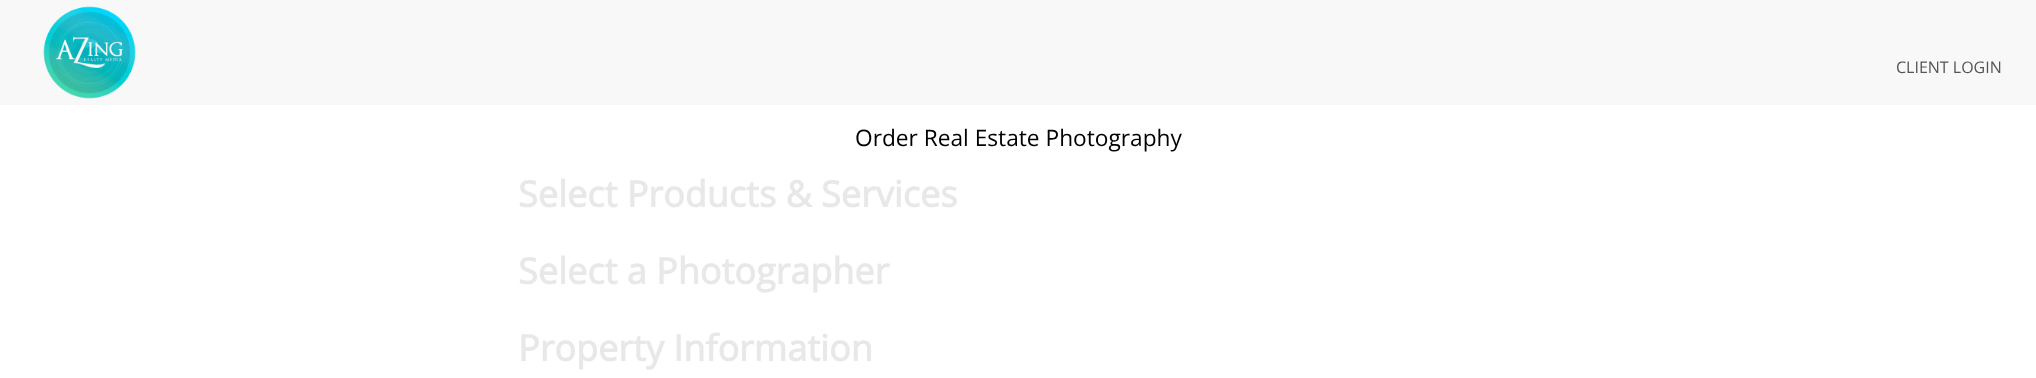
<!DOCTYPE html>
<meta charset="utf-8">
<style>body { margin: 0 } canvas { display: block }</style>
<canvas id="canvas" width="2036" height="378"></canvas>
<script type="module">
  const canvas = document.getElementById("canvas");
  const g = canvas.getContext("2d");
  g.miterLimit = 4;
  g.fontKerning = "normal";
  function drawText(s, x, y, [font, color]) {
    g.font = font;
    g.fillStyle = color;
    g.fillText(s, x, y);
  }
  function fillBox(x, y, w, h, color) {
    g.fillStyle = color;
    g.fillRect(x, y, w, h);
  }
  async function drawPicture(src, x, y, w, h) {
    const img = new Image();
    img.src = src;
    await img.decode();
    g.drawImage(img, x, y, w, h);
  }

  const s1 = ["16px Open Sans", "#555555"];
  const s2 = ["22.7px Open Sans", "#000000"];
  const s3 = ["bold 36px Open Sans", "#E8E8E8"];

  fillBox(0, 0, 2036, 378, "#FFFFFF");
  fillBox(0, 0, 2036, 105, "#F8F8F8");
  await drawPicture("pic1.png", 43, 6, 93, 93);
  drawText("CLIENT LOGIN", 1896, 73, s1);
  drawText("Order Real Estate Photography", 855, 146, s2);
  drawText("Select Products & Services", 518, 207, s3);
  drawText("Select a Photographer", 518, 284, s3);
  drawText("Property Information", 518, 361, s3);
</script>
